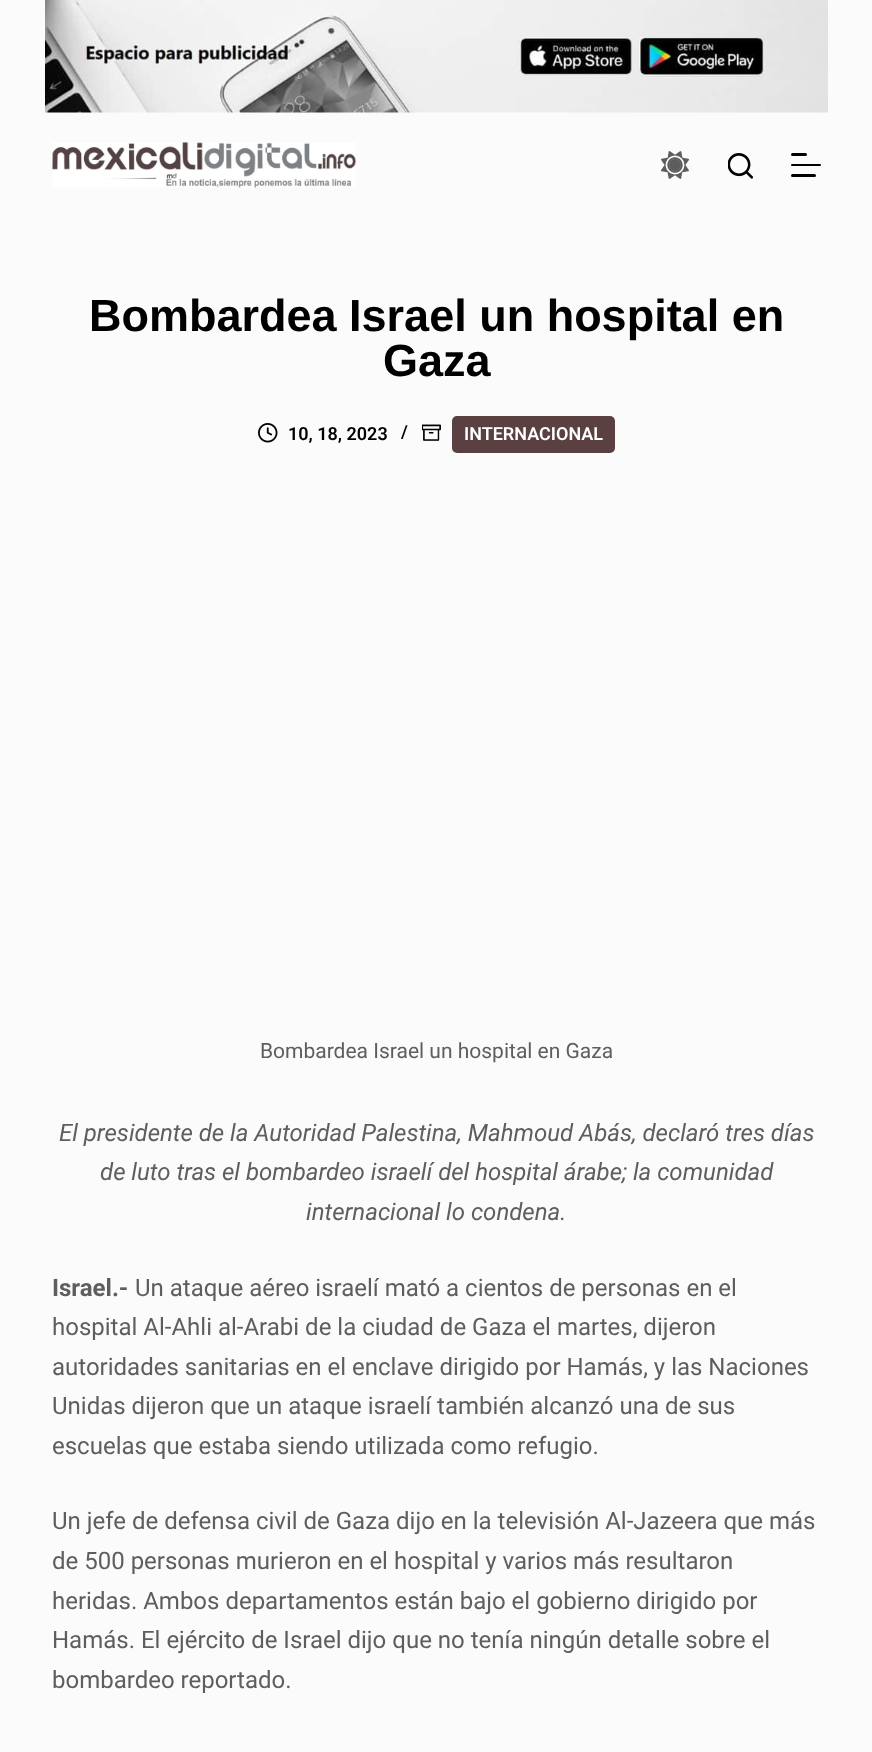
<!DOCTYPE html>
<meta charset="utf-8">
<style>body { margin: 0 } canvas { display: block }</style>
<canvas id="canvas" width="872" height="1752"></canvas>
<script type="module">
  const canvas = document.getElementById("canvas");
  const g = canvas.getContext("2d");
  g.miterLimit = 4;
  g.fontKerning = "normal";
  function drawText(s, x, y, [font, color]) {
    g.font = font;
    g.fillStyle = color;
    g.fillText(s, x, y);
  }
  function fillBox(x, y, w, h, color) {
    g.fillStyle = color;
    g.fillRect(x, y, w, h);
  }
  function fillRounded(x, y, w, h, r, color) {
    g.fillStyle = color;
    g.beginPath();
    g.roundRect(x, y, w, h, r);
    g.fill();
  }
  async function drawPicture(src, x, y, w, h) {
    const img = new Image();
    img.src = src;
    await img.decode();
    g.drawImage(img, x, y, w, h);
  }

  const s1 = ["bold 45px Liberation Sans", "#000000"];
  const s2 = ["600 18px Roboto", "#000000"];
  const s3 = ["600 18px Roboto", "#FFFFFF"];
  const s4 = ["21px Roboto", "#5E5E5E"];
  const s5 = ["italic 24px Roboto", "#5E5E5E"];
  const s6 = ["bold 24px Roboto", "#5E5E5E"];
  const s7 = ["24px Roboto", "#5E5E5E"];

  fillBox(0, 0, 872, 1752, "#FBFBFC");
  await drawPicture("pic1.png", 45, 0, 783, 113);
  await drawPicture("pic2.png", 52, 142, 304, 46);
  await drawPicture("pic3.png", 661, 151, 28, 28);
  await drawPicture("pic4.png", 728, 153, 25, 26);
  fillRounded(791, 153, 16, 3, 1.5, "#000000");
  fillRounded(791, 164, 30, 2, 1, "#000000");
  fillRounded(791, 174, 25, 3, 1.5, "#000000");
  drawText("Bombardea Israel un hospital en", 89, 331, s1);
  drawText("Gaza", 383, 376, s1);
  await drawPicture("pic5.png", 258, 423, 20, 20);
  drawText("10, 18, 2023", 288, 440, s2);
  drawText("/", 401, 438, s2);
  await drawPicture("pic6.png", 422, 424, 19, 17);
  fillRounded(452, 416, 163, 37, 5, "#5B4042");
  drawText("INTERNACIONAL", 464, 440, s3);
  drawText("Bombardea Israel un hospital en Gaza", 260, 1058, s4);
  drawText("El presidente de la Autoridad Palestina, Mahmoud Abás, declaró tres días", 59, 1141, s5);
  drawText("de luto tras el bombardeo israelí del hospital árabe; la comunidad", 100, 1180, s5);
  drawText("internacional lo condena.", 306, 1220, s5);
  drawText("Israel.-", 52, 1296, s6);
  drawText("Un ataque aéreo israelí mató a cientos de personas en el", 135, 1296, s7);
  drawText("hospital Al-Ahli al-Arabi de la ciudad de Gaza el martes, dijeron", 52, 1335, s7);
  drawText("autoridades sanitarias en el enclave dirigido por Hamás, y las Naciones", 52, 1375, s7);
  drawText("Unidas dijeron que un ataque israelí también alcanzó una de sus", 52, 1414, s7);
  drawText("escuelas que estaba siendo utilizada como refugio.", 52, 1454, s7);
  drawText("Un jefe de defensa civil de Gaza dijo en la televisión Al-Jazeera que más", 52, 1529, s7);
  drawText("de 500 personas murieron en el hospital y varios más resultaron", 52, 1569, s7);
  drawText("heridas. Ambos departamentos están bajo el gobierno dirigido por", 52, 1609, s7);
  drawText("Hamás. El ejército de Israel dijo que no tenía ningún detalle sobre el", 52, 1648, s7);
  drawText("bombardeo reportado.", 52, 1688, s7);
</script>
